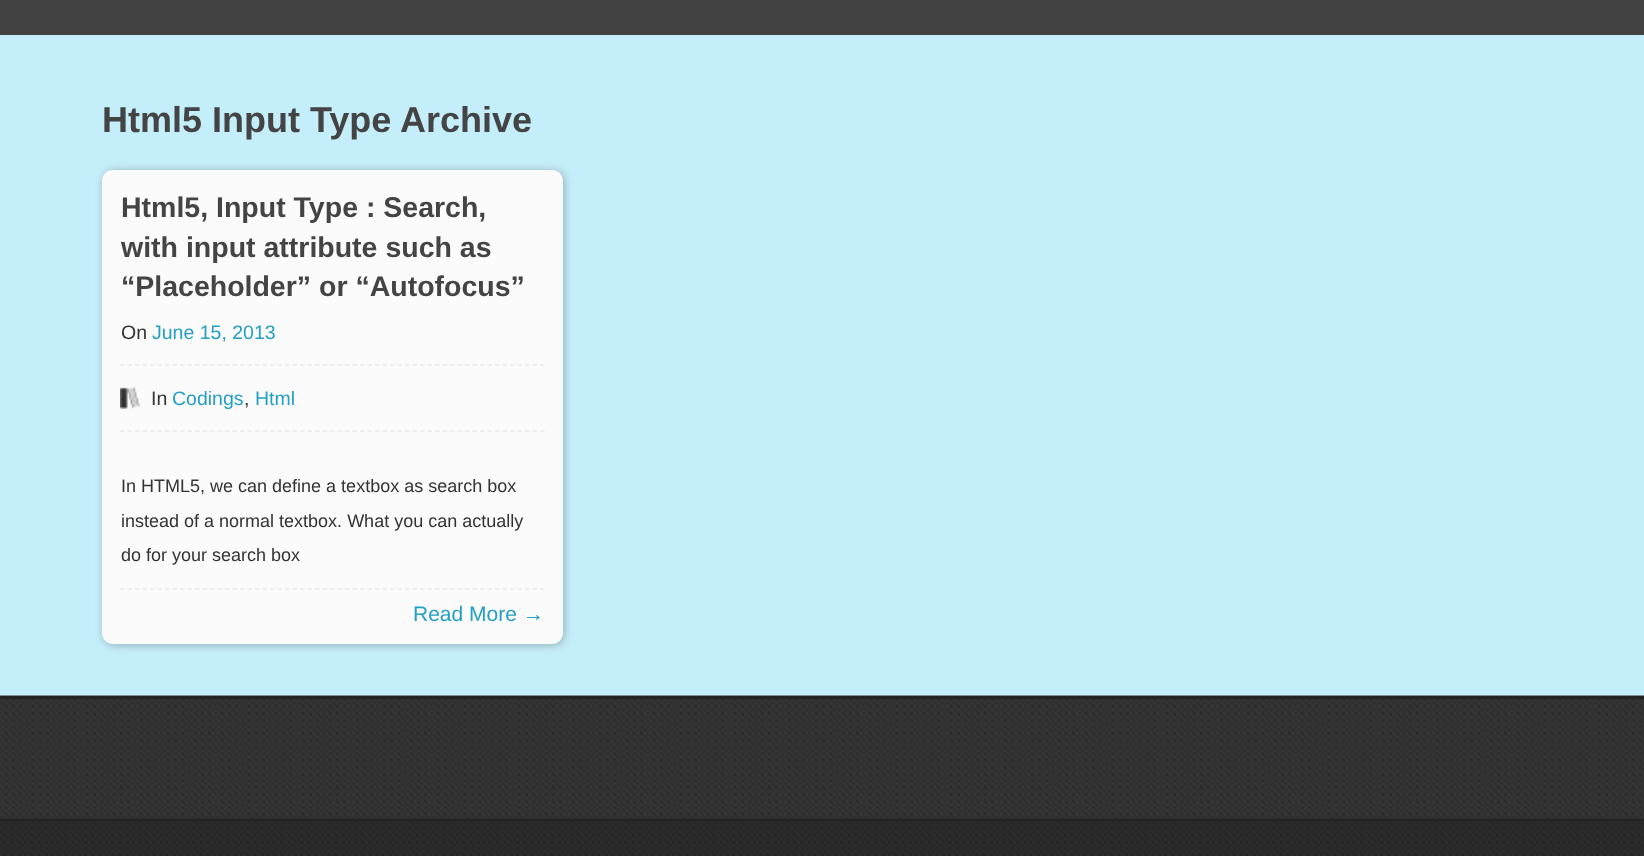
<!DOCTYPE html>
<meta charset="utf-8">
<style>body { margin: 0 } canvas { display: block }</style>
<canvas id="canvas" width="1644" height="856"></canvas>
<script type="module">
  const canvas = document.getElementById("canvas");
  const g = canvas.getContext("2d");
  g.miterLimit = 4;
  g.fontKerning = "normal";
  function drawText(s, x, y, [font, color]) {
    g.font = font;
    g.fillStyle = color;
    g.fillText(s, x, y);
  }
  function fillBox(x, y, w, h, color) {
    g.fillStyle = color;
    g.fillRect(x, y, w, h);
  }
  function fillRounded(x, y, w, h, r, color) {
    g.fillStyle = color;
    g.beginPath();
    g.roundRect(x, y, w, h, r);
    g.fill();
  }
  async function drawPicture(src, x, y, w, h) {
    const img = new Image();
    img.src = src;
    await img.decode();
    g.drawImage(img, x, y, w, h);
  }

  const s1 = ["bold 36px Liberation Sans", "#444444"];
  const s2 = ["bold 28.5px Liberation Sans", "#444444"];
  const s3 = ["19.5px Liberation Sans", "#333333"];
  const s4 = ["19.5px Liberation Sans", "#23A0C3"];
  const s5 = ["18px Liberation Sans", "#333333"];
  const s6 = ["21px Liberation Sans", "#23A0C3"];

  fillBox(0, 0, 1644, 856, "#C4EEFA");
  fillBox(0, 0, 1644, 35, "#424242");
  drawText("Html5 Input Type Archive", 102, 132, s1);
  g.fillStyle = "rgba(50, 50, 50, 0.35)";
  g.filter = "blur(4px)";
  g.beginPath();
  g.roundRect(104, 171, 460, 474, 11);
  g.fill();
  g.filter = "none";
  fillRounded(102, 170, 461, 474, 11, "#FBFBFB");
  drawText("Html5, Input Type : Search,", 121, 217, s2);
  drawText("with input attribute such as", 121, 257, s2);
  drawText("“Placeholder” or “Autofocus”", 121, 296, s2);
  g.beginPath();
  g.moveTo(120, 365);
  g.lineTo(544.5, 365);
  g.strokeStyle = "#EAEAEA";
  g.lineWidth = 1.5;
  g.setLineDash([4.5, 3]);
  g.stroke();
  drawText("On", 121, 339, s3);
  drawText("June 15, 2013", 152, 339, s4);
  g.beginPath();
  g.moveTo(120, 431);
  g.lineTo(544.5, 431);
  g.stroke();
  await drawPicture("pic1.png", 120, 386, 20, 23);
  drawText("In", 151, 405, s3);
  drawText("Codings", 172, 405, s4);
  drawText(",", 244, 405, s3);
  drawText("Html", 255, 405, s4);
  g.beginPath();
  g.moveTo(120, 589);
  g.lineTo(544.5, 589);
  g.stroke();
  drawText("In HTML5, we can define a textbox as search box", 121, 492, s5);
  drawText("instead of a normal textbox. What you can actually", 121, 527, s5);
  drawText("do for your search box", 121, 561, s5);
  drawText("Read More →", 413, 621, s6);
  await drawPicture("pic2.png", 0, 695, 1644, 124);
  fillBox(0, 696, 1644, 3, "#232323");
  await drawPicture("pic3.png", 0, 818, 1644, 38);
  fillBox(0, 819, 1644, 2, "#232323");
</script>
